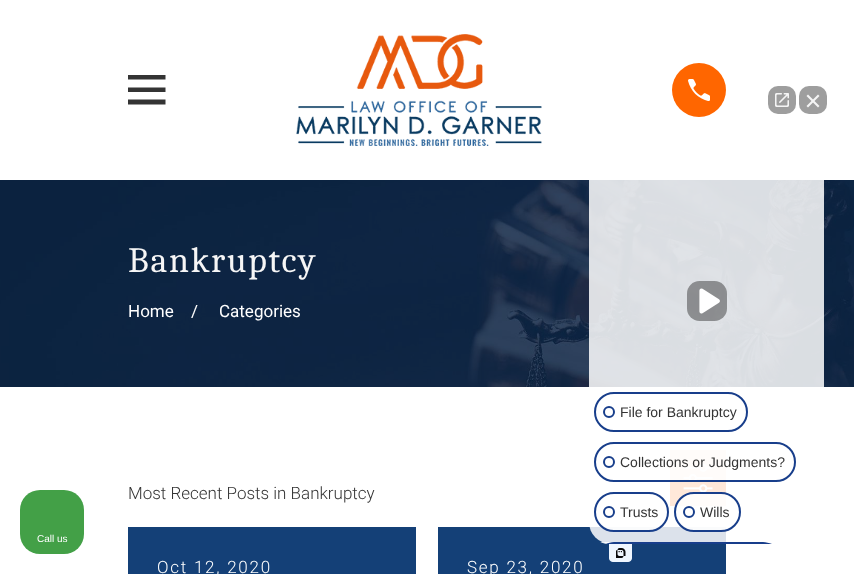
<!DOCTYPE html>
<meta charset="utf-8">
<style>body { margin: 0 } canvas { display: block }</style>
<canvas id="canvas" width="854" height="574"></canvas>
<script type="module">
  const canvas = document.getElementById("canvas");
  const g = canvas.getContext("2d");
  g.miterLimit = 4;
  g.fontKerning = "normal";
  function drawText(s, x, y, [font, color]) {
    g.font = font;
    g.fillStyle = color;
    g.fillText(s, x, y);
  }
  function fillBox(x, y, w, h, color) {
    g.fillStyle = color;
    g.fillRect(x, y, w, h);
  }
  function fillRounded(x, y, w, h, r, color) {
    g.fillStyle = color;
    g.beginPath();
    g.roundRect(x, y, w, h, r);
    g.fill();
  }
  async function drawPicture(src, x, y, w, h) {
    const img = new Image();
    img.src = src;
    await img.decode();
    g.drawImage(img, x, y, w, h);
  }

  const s1 = ["35.75px Caladea", "#F6F6F6"];
  const s2 = ["17px Roboto", "#FFFFFF"];
  const s3 = ["300 17px Roboto", "#343434"];
  const s4 = ["300 17px Roboto", "#FFFFFF"];
  const s5 = ["14px Liberation Sans", "#343434"];
  const s6 = ["10px Liberation Sans", "#FFFFFF"];

  fillBox(0, 0, 854, 574, "#FFFFFF");
  g.fillStyle = "#343434";
  g.beginPath();
  g.moveTo(128, 75);
  g.lineTo(128, 79.5);
  g.lineTo(165.5, 79.5);
  g.lineTo(165.5, 75);
  g.closePath();
  g.moveTo(128, 87.5);
  g.lineTo(128, 92);
  g.lineTo(165.5, 92);
  g.lineTo(165.5, 87.5);
  g.closePath();
  g.moveTo(128, 99.5);
  g.lineTo(128, 104.5);
  g.lineTo(165.5, 104.5);
  g.lineTo(165.5, 99.5);
  g.closePath();
  g.fill();
  await drawPicture("pic1.png", 296, 34, 246, 112);
  g.fillStyle = "#FF6600";
  g.beginPath();
  g.arc(699, 90, 27, 0, Math.PI * 2);
  g.fill();
  await drawPicture("pic2.png", 688, 79, 22, 22);
  fillBox(0, 180, 854, 207, "#0C2748");
  await drawPicture("pic3.png", 0, 180, 854, 207);
  g.letterSpacing = "1.75px";
  drawText("Bankruptcy", 128, 272, s1);
  g.letterSpacing = "0px";
  drawText("Home", 128, 317, s2);
  drawText("/", 191, 317, s2);
  drawText("Categories", 219, 317, s2);
  drawText("Most Recent Posts in Bankruptcy", 128, 499, s3);
  fillBox(670, 450, 56, 56, "#FF6600");
  await drawPicture("pic4.png", 683, 463, 30, 29);
  fillBox(128, 527, 288, 47, "#144077");
  g.letterSpacing = "1.75px";
  drawText("Oct 12, 2020", 157, 573, s4);
  fillBox(438, 527, 288, 47, "#144077");
  drawText("Sep 23, 2020", 467, 573, s4);
  fillRounded(589, 127, 235, 417, 22, "rgba(255, 255, 255, 0.85)");
  fillRounded(768, 86, 28, 28, 10, "#9E9E9E");
  await drawPicture("pic5.png", 775, 93, 14, 14);
  fillRounded(799, 86, 28, 28, 10, "#9E9E9E");
  g.fillStyle = "#F5F5F5";
  g.beginPath();
  g.moveTo(806.5, 96);
  g.lineTo(808, 94.5);
  g.lineTo(819.5, 106);
  g.lineTo(818, 107.5);
  g.closePath();
  g.fill();
  g.beginPath();
  g.moveTo(818, 94.5);
  g.lineTo(819.5, 96);
  g.lineTo(808, 107.5);
  g.lineTo(806.5, 106);
  g.closePath();
  g.fill();
  await drawPicture("pic6.png", 687, 281, 40, 40);
  g.beginPath();
  g.roundRect(595, 393, 152, 38, 19);
  g.strokeStyle = "#183E8B";
  g.lineWidth = 2;
  g.stroke();
  g.beginPath();
  g.arc(609, 412, 5, 0, Math.PI * 2);
  g.stroke();
  g.letterSpacing = "0px";
  drawText("File for Bankruptcy", 620, 417, s5);
  g.fillStyle = "rgba(255, 255, 255, 0.85)";
  g.beginPath();
  g.roundRect(595, 443, 200, 38, 19);
  g.fill();
  g.stroke();
  g.beginPath();
  g.arc(609, 462, 5, 0, Math.PI * 2);
  g.stroke();
  drawText("Collections or Judgments?", 620, 467, s5);
  g.fillStyle = "rgba(255, 255, 255, 0.85)";
  g.beginPath();
  g.roundRect(595, 493, 73, 38, 19);
  g.fill();
  g.stroke();
  g.beginPath();
  g.arc(609, 512, 5, 0, Math.PI * 2);
  g.stroke();
  drawText("Trusts", 620, 517, s5);
  g.fillStyle = "rgba(255, 255, 255, 0.85)";
  g.beginPath();
  g.roundRect(675, 493, 65, 38, 19);
  g.fill();
  g.stroke();
  g.beginPath();
  g.arc(689, 512, 5, 0, Math.PI * 2);
  g.stroke();
  drawText("Wills", 700, 517, s5);
  g.save();
  g.beginPath();
  g.roundRect(589, 173, 235, 371, [0, 0, 20, 20]);
  g.clip();
  g.fillStyle = "rgba(255, 255, 255, 0.85)";
  g.beginPath();
  g.roundRect(594, 542, 189, 2, [20, 20, 0, 0]);
  g.fill();
  g.restore();
  g.fillStyle = "#183E8B";
  g.beginPath();
  g.moveTo(614, 542);
  g.bezierCurveTo(611, 542, 608, 543, 606, 544);
  g.lineTo(772, 544);
  g.bezierCurveTo(769, 543, 766, 542, 763, 542);
  g.closePath();
  g.fill();
  await drawPicture("pic7.png", 609, 544, 23, 18);
  fillRounded(20, 490, 64, 64, 20, "#43A047");
  drawText("Call us", 37, 542, s6);
</script>
